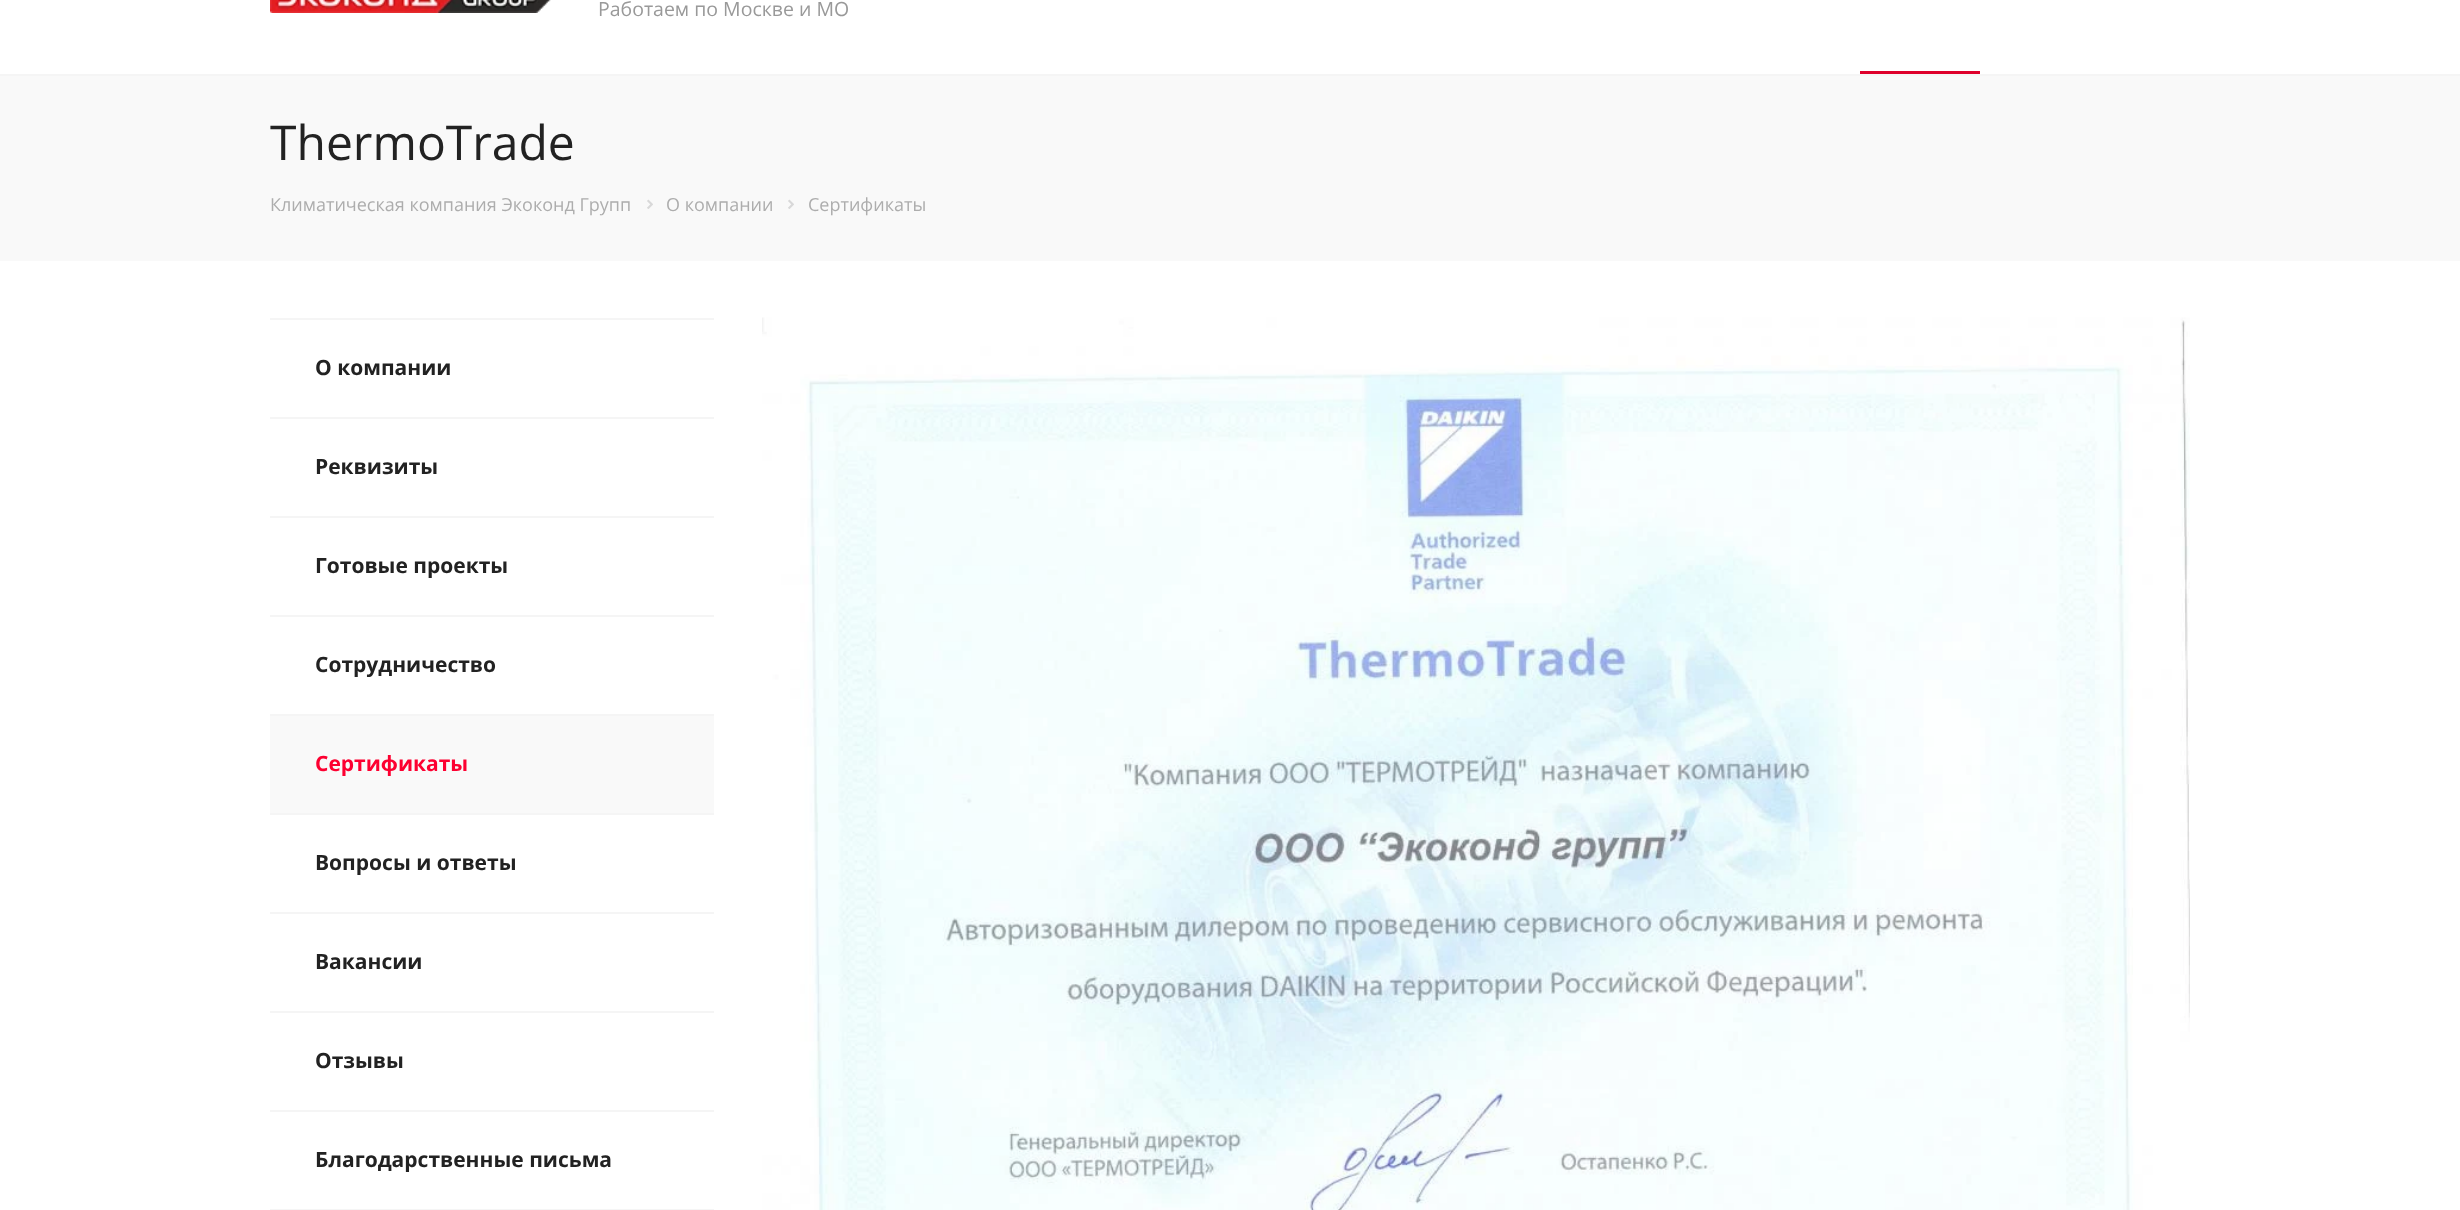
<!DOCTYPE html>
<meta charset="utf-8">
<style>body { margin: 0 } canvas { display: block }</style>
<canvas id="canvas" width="2460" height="1210"></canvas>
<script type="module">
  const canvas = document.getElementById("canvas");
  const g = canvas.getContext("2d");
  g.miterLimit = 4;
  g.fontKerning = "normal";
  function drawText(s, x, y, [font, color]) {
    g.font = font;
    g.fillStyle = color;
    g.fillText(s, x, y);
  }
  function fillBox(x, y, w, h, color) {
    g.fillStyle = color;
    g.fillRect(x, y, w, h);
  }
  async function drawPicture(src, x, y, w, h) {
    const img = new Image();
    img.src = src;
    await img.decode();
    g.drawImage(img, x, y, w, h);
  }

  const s1 = ["19.5px Open Sans", "#999999"];
  const s2 = ["48px Open Sans", "#222222"];
  const s3 = ["18px Open Sans", "#ADADAD"];
  const s4 = ["bold 21px Open Sans", "#222222"];
  const s5 = ["bold 21px Open Sans", "#FD0031"];

  fillBox(0, 0, 2460, 1210, "#FFFFFF");
  fillBox(0, 74, 2460, 2, "#F5F5F5");
  await drawPicture("pic1.png", 270, 0, 281, 13);
  drawText("Работаем по Москве и МО", 598, 16, s1);
  fillBox(1860, 71, 120, 3, "#DE002B");
  fillBox(0, 76, 2460, 185, "#F9F9F9");
  drawText("ThermoTrade", 270, 160, s2);
  drawText("Климатическая компания Экоконд Групп", 270, 211, s3);
  await drawPicture("pic2.png", 647, 199, 6, 10);
  drawText("О компании", 666, 211, s3);
  await drawPicture("pic2.png", 788, 199, 6, 10);
  drawText("Сертификаты", 808, 211, s3);
  fillBox(270, 1209, 444, 1, "#F5F5F5");
  fillBox(270, 318, 444, 2, "#F5F5F5");
  drawText("О компании", 315, 375, s4);
  fillBox(270, 417, 444, 2, "#F5F5F5");
  drawText("Реквизиты", 315, 474, s4);
  fillBox(270, 516, 444, 2, "#F5F5F5");
  drawText("Готовые проекты", 315, 573, s4);
  fillBox(270, 615, 444, 2, "#F5F5F5");
  drawText("Сотрудничество", 315, 672, s4);
  fillBox(270, 716, 444, 97, "#F9F9F9");
  fillBox(270, 714, 444, 2, "#F5F5F5");
  drawText("Сертификаты", 315, 771, s5);
  fillBox(270, 813, 444, 2, "#F5F5F5");
  drawText("Вопросы и ответы", 315, 870, s4);
  fillBox(270, 912, 444, 2, "#F5F5F5");
  drawText("Вакансии", 315, 969, s4);
  fillBox(270, 1011, 444, 2, "#F5F5F5");
  drawText("Отзывы", 315, 1068, s4);
  fillBox(270, 1110, 444, 2, "#F5F5F5");
  drawText("Благодарственные письма", 315, 1167, s4);
  await drawPicture("pic3.png", 762, 317, 1428, 893);
</script>
